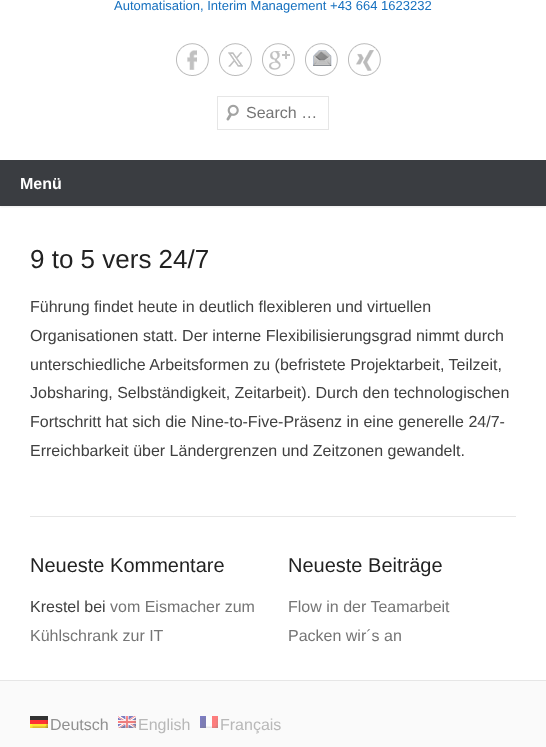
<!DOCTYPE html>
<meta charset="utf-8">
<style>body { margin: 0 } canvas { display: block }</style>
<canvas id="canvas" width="546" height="747"></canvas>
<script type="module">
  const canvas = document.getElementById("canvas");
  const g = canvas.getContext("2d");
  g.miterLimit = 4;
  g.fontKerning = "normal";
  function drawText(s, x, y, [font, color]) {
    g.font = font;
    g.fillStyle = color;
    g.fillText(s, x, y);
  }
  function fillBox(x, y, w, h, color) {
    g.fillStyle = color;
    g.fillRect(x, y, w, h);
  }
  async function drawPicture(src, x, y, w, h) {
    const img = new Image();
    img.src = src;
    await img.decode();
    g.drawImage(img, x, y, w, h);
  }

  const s1 = ["13px Liberation Sans", "#1670BF"];
  const s2 = ["16px Liberation Sans", "#757575"];
  const s3 = ["bold 16px Liberation Sans", "#FFFFFF"];
  const s4 = ["26px Liberation Sans", "#222222"];
  const s5 = ["16px Liberation Sans", "#404040"];
  const s6 = ["20px Liberation Sans", "#222222"];
  const s7 = ["16px Liberation Sans", "#909090"];
  const s8 = ["16px Liberation Sans", "#B8B8B8"];

  fillBox(0, 0, 546, 747, "#FFFFFF");
  drawText("Automatisation, Interim Management +43 664 1623232", 114, 10, s1);
  await drawPicture("pic1.png", 176, 43, 33, 33);
  await drawPicture("pic2.png", 219, 43, 33, 33);
  await drawPicture("pic3.png", 262, 43, 33, 33);
  await drawPicture("pic4.png", 305, 43, 33, 33);
  await drawPicture("pic5.png", 348, 43, 33, 33);
  await drawPicture("pic6.png", 226, 104, 13, 17);
  g.strokeStyle = "#E6E6E6";
  g.strokeRect(217.5, 96.5, 111, 33);
  drawText("Search …", 246, 118, s2);
  fillBox(0, 160, 546, 46, "#3A3D41");
  g.save();
  g.beginPath();
  g.rect(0, 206, 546, 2);
  g.clip();
  g.fillStyle = "rgba(64, 64, 64, 0.1)";
  g.filter = "blur(1px)";
  g.beginPath();
  g.rect(0, 161, 546, 46);
  g.fill();
  g.filter = "none";
  g.restore();
  drawText("Menü", 20, 189, s3);
  fillBox(30, 516, 486, 1, "#E6E6E6");
  drawText("9 to 5 vers 24/7", 30, 268, s4);
  drawText("Führung findet heute in deutlich flexibleren und virtuellen", 30, 312, s5);
  drawText("Organisationen statt. Der interne Flexibilisierungsgrad nimmt durch", 30, 341, s5);
  drawText("unterschiedliche Arbeitsformen zu (befristete Projektarbeit, Teilzeit,", 30, 370, s5);
  drawText("Jobsharing, Selbständigkeit, Zeitarbeit). Durch den technologischen", 30, 398, s5);
  drawText("Fortschritt hat sich die Nine-to-Five-Präsenz in eine generelle 24/7-", 30, 427, s5);
  drawText("Erreichbarkeit über Ländergrenzen und Zeitzonen gewandelt.", 30, 456, s5);
  drawText("Neueste Kommentare", 30, 572, s6);
  drawText("Krestel bei", 30, 612, s5);
  drawText("vom Eismacher zum", 110, 612, s2);
  drawText("Kühlschrank zur IT", 30, 641, s2);
  drawText("Neueste Beiträge", 288, 572, s6);
  drawText("Flow in der Teamarbeit", 288, 612, s2);
  drawText("Packen wir´s an", 288, 641, s2);
  fillBox(0, 681, 546, 66, "#FAFAFA");
  fillBox(0, 680, 546, 1, "#E6E6E6");
  await drawPicture("pic7.png", 30, 716, 18, 12);
  drawText("Deutsch", 50, 730, s7);
  await drawPicture("pic8.png", 118, 716, 18, 12);
  drawText("English", 138, 730, s8);
  await drawPicture("pic9.png", 200, 716, 18, 12);
  drawText("Français", 220, 730, s8);
</script>
